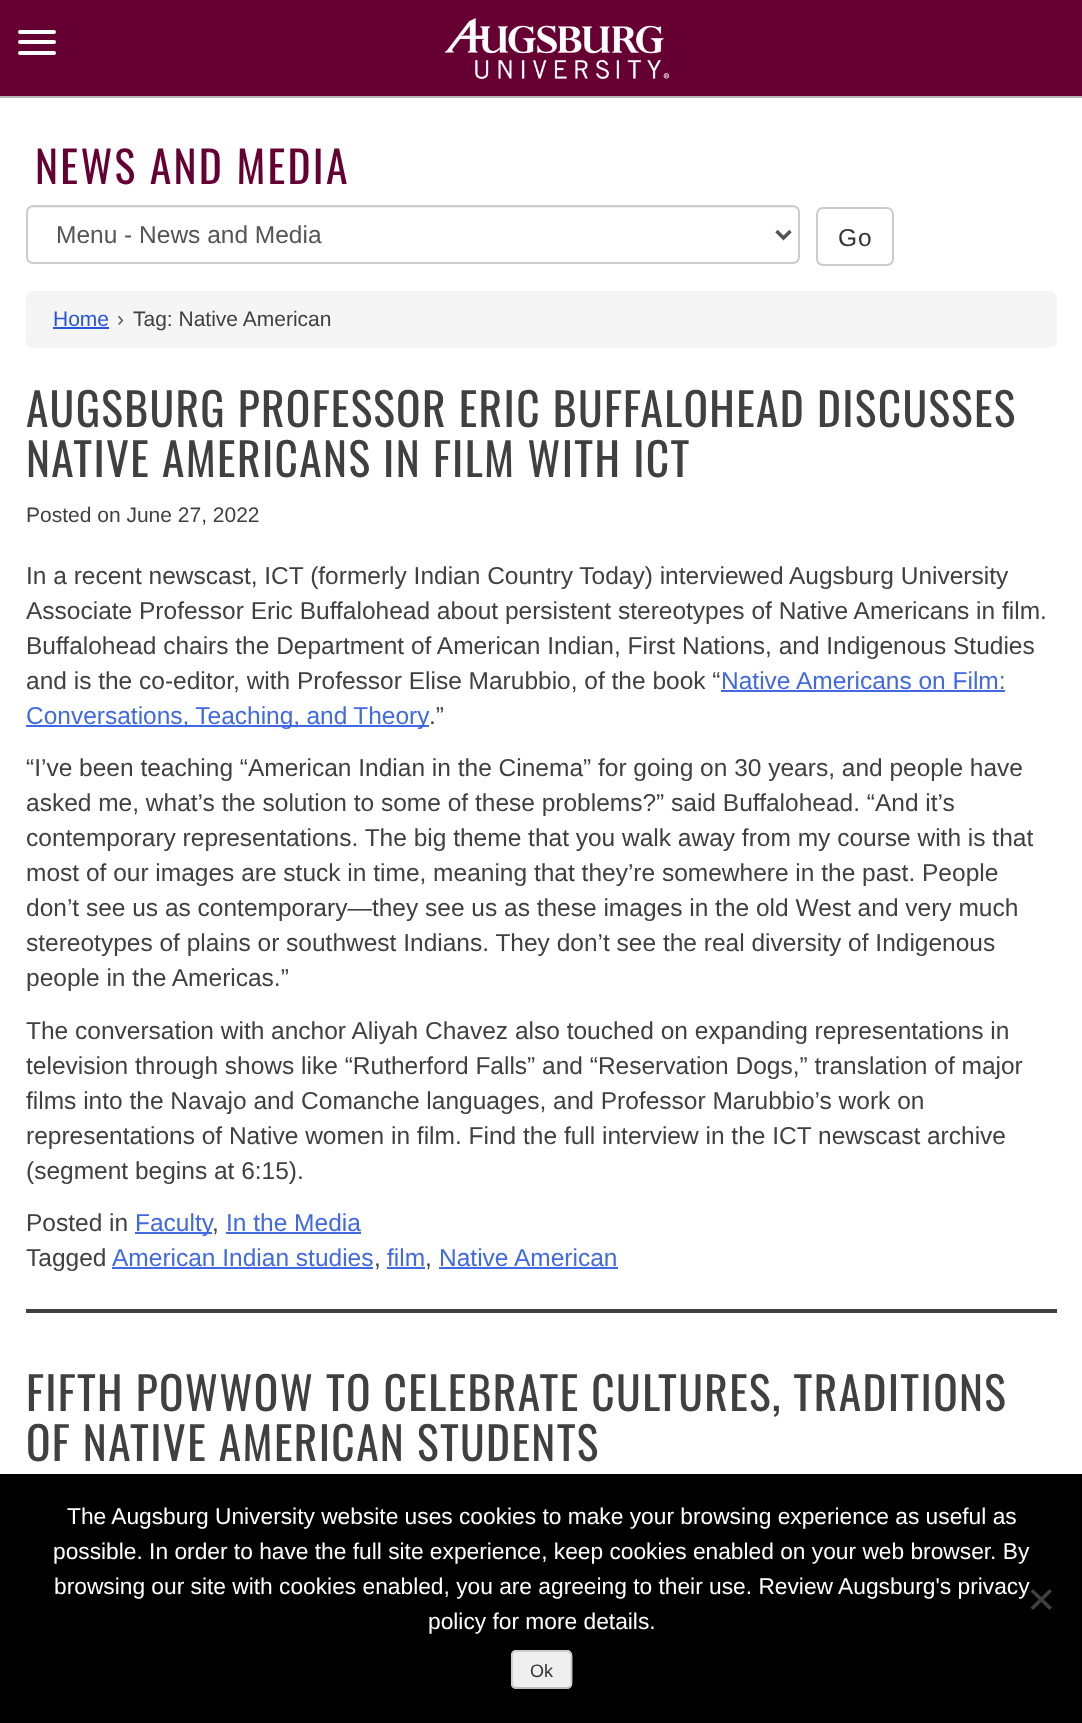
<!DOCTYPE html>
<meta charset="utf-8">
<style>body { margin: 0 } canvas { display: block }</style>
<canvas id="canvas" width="1082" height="1723"></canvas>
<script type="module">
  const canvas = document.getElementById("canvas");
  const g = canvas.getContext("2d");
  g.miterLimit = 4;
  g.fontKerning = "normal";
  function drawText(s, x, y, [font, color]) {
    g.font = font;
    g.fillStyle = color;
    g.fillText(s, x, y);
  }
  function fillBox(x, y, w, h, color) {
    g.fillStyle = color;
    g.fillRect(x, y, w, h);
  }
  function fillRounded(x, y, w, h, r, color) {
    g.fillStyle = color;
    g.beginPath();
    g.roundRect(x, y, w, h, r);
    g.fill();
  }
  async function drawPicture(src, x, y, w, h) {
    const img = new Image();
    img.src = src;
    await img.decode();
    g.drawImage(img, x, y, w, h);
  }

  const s1 = ["43.75px Oswald", "#660033"];
  const s2 = ["24.5px Liberation Sans", "#555555"];
  const s3 = ["24.5px Liberation Sans", "#333333"];
  const s4 = ["21px Liberation Sans", "#2654DD"];
  const s5 = ["21px Liberation Sans", "#555555"];
  const s6 = ["21px Liberation Sans", "#404040"];
  const s7 = ["45.5px Oswald", "#404040"];
  const s8 = ["24.5px Liberation Sans", "#404040"];
  const s9 = ["24.5px Liberation Sans", "#4169E1"];
  const s10 = ["22.75px Liberation Sans", "#FFFFFF"];
  const s11 = ["18px Liberation Sans", "#333333"];

  fillBox(0, 0, 1082, 1723, "#FFFFFF");
  fillBox(0, 0, 1082, 96, "#660033");
  fillBox(0, 96, 1082, 2, "#B7B7B7");
  fillRounded(18, 30, 38, 4, 2, "#FFFFFF");
  fillRounded(18, 40, 38, 4, 2, "#FFFFFF");
  fillRounded(18, 51, 38, 4, 2, "#FFFFFF");
  await drawPicture("pic1.png", 444, 18, 225, 61);
  g.letterSpacing = "2.25px";
  drawText("NEWS AND MEDIA", 35, 184, s1);
  g.fillStyle = "#ECECEC";
  g.beginPath();
  g.moveTo(33, 208);
  g.lineTo(793, 208);
  g.bezierCurveTo(796, 208, 798, 211, 798, 214);
  g.bezierCurveTo(798, 211, 797, 207, 793, 207);
  g.lineTo(33, 207);
  g.bezierCurveTo(29, 207, 28, 211, 28, 214);
  g.bezierCurveTo(28, 211, 30, 208, 33, 208);
  g.closePath();
  g.fill();
  g.beginPath();
  g.roundRect(27, 206, 772, 57, 6);
  g.strokeStyle = "#CCCCCC";
  g.lineWidth = 2;
  g.stroke();
  g.beginPath();
  g.moveTo(776.5, 231);
  g.lineTo(783.5, 238);
  g.lineTo(790.5, 231);
  g.strokeStyle = "#555555";
  g.lineWidth = 3.5;
  g.stroke();
  g.letterSpacing = "0px";
  drawText("Menu - News and Media", 56, 243, s2);
  g.beginPath();
  g.roundRect(817, 208, 76, 57, 6);
  g.strokeStyle = "#CCCCCC";
  g.lineWidth = 2;
  g.stroke();
  g.letterSpacing = "1px";
  drawText("Go", 838, 246, s3);
  fillRounded(26, 291, 1031, 57, 7, "#F5F5F5");
  g.letterSpacing = "0px";
  drawText("Home", 53, 326, s4);
  fillBox(53, 327, 56, 2, "#2654DD");
  drawText("›", 117, 326, s5);
  drawText("Tag: Native American", 133, 326, s6);
  fillBox(26, 1309, 1031, 4, "#404040");
  g.letterSpacing = "1.35px";
  drawText("AUGSBURG PROFESSOR ERIC BUFFALOHEAD DISCUSSES", 26, 427, s7);
  drawText("NATIVE AMERICANS IN FILM WITH ICT", 26, 477, s7);
  g.letterSpacing = "0px";
  drawText("Posted on June 27, 2022", 26, 522, s6);
  drawText("In a recent newscast, ICT (formerly Indian Country Today) interviewed Augsburg University", 26, 584, s8);
  drawText("Associate Professor Eric Buffalohead about persistent stereotypes of Native Americans in film.", 26, 619, s8);
  drawText("Buffalohead chairs the Department of American Indian, First Nations, and Indigenous Studies", 26, 654, s8);
  drawText("and is the co-editor, with Professor Elise Marubbio, of the book “", 26, 689, s8);
  drawText("Native Americans on Film:", 721, 689, s9);
  fillBox(721, 690, 284, 2, "#4169E1");
  fillBox(26, 725, 403, 2, "#4169E1");
  g.wordSpacing = "-0.5px";
  drawText("Conversations, Teaching, and Theory", 26, 724, s9);
  g.wordSpacing = "0px";
  drawText(".”", 429, 724, s8);
  drawText("“I’ve been teaching “American Indian in the Cinema” for going on 30 years, and people have", 26, 776, s8);
  drawText("asked me, what’s the solution to some of these problems?” said Buffalohead. “And it’s", 26, 811, s8);
  drawText("contemporary representations. The big theme that you walk away from my course with is that", 26, 846, s8);
  drawText("most of our images are stuck in time, meaning that they’re somewhere in the past. People", 26, 881, s8);
  drawText("don’t see us as contemporary—they see us as these images in the old West and very much", 26, 916, s8);
  drawText("stereotypes of plains or southwest Indians. They don’t see the real diversity of Indigenous", 26, 951, s8);
  drawText("people in the Americas.”", 26, 986, s8);
  drawText("The conversation with anchor Aliyah Chavez also touched on expanding representations in", 26, 1039, s8);
  drawText("television through shows like “Rutherford Falls” and “Reservation Dogs,” translation of major", 26, 1074, s8);
  drawText("films into the Navajo and Comanche languages, and Professor Marubbio’s work on", 26, 1109, s8);
  drawText("representations of Native women in film. Find the full interview in the ICT newscast archive", 26, 1144, s8);
  drawText("(segment begins at 6:15).", 26, 1179, s8);
  drawText("Posted in", 26, 1231, s8);
  fillBox(135, 1232, 77, 2, "#4169E1");
  drawText("Faculty", 135, 1231, s9);
  drawText(",", 212, 1231, s8);
  fillBox(226, 1232, 135, 2, "#4169E1");
  drawText("In the Media", 226, 1231, s9);
  drawText("Tagged", 26, 1266, s8);
  drawText("American Indian studies", 112, 1266, s9);
  drawText(",", 374, 1266, s8);
  fillBox(112, 1267, 261, 2, "#4169E1");
  drawText("film", 387, 1266, s9);
  drawText(",", 425, 1266, s8);
  fillBox(387, 1267, 38, 2, "#4169E1");
  fillBox(439, 1267, 179, 2, "#4169E1");
  drawText("Native American", 439, 1266, s9);
  g.letterSpacing = "1.35px";
  drawText("FIFTH POWWOW TO CELEBRATE CULTURES, TRADITIONS", 26, 1411, s7);
  drawText("OF NATIVE AMERICAN STUDENTS", 26, 1461, s7);
  fillBox(0, 1474, 1082, 249, "#000000");
  g.letterSpacing = "0px";
  drawText("The Augsburg University website uses cookies to make your browsing experience as useful as", 67, 1524, s10);
  drawText("possible. In order to have the full site experience, keep cookies enabled on your web browser. By", 53, 1559, s10);
  drawText("browsing our site with cookies enabled, you are agreeing to their use. Review Augsburg's privacy", 54, 1594, s10);
  drawText("policy for more details.", 428, 1629, s10);
  g.fillStyle = "#404040";
  g.beginPath();
  g.moveTo(1049.5, 1589);
  g.lineTo(1052, 1591.5);
  g.lineTo(1033, 1610);
  g.lineTo(1030.5, 1607.5);
  g.closePath();
  g.fill();
  g.beginPath();
  g.moveTo(1030.5, 1591.5);
  g.lineTo(1033, 1589);
  g.lineTo(1052, 1607.5);
  g.lineTo(1049.5, 1610);
  g.closePath();
  g.fill();
  fillRounded(511, 1650, 61, 39, 5, "#EFEFEF");
  g.beginPath();
  g.moveTo(570, 1686.5);
  g.bezierCurveTo(569.5, 1687.5, 568, 1688, 567, 1688);
  g.lineTo(516, 1688);
  g.bezierCurveTo(515, 1688, 514, 1687.5, 513, 1686.5);
  g.strokeStyle = "#BBBBBB";
  g.lineWidth = 1.8;
  g.stroke();
  g.beginPath();
  g.moveTo(513, 1686.5);
  g.bezierCurveTo(512.5, 1686, 512, 1684.5, 512, 1683.5);
  g.lineTo(512, 1655.5);
  g.bezierCurveTo(512, 1654.5, 512.5, 1653, 513, 1652.5);
  g.bezierCurveTo(514, 1651.5, 515, 1651, 516, 1651);
  g.lineTo(567, 1651);
  g.bezierCurveTo(568, 1651, 569.5, 1651.5, 570, 1652.5);
  g.bezierCurveTo(571, 1653, 571.5, 1654.5, 571.5, 1655.5);
  g.lineTo(571.5, 1683.5);
  g.bezierCurveTo(571.5, 1684.5, 571, 1686, 570, 1686.5);
  g.strokeStyle = "#CCCCCC";
  g.stroke();
  drawText("Ok", 530, 1677, s11);
</script>
